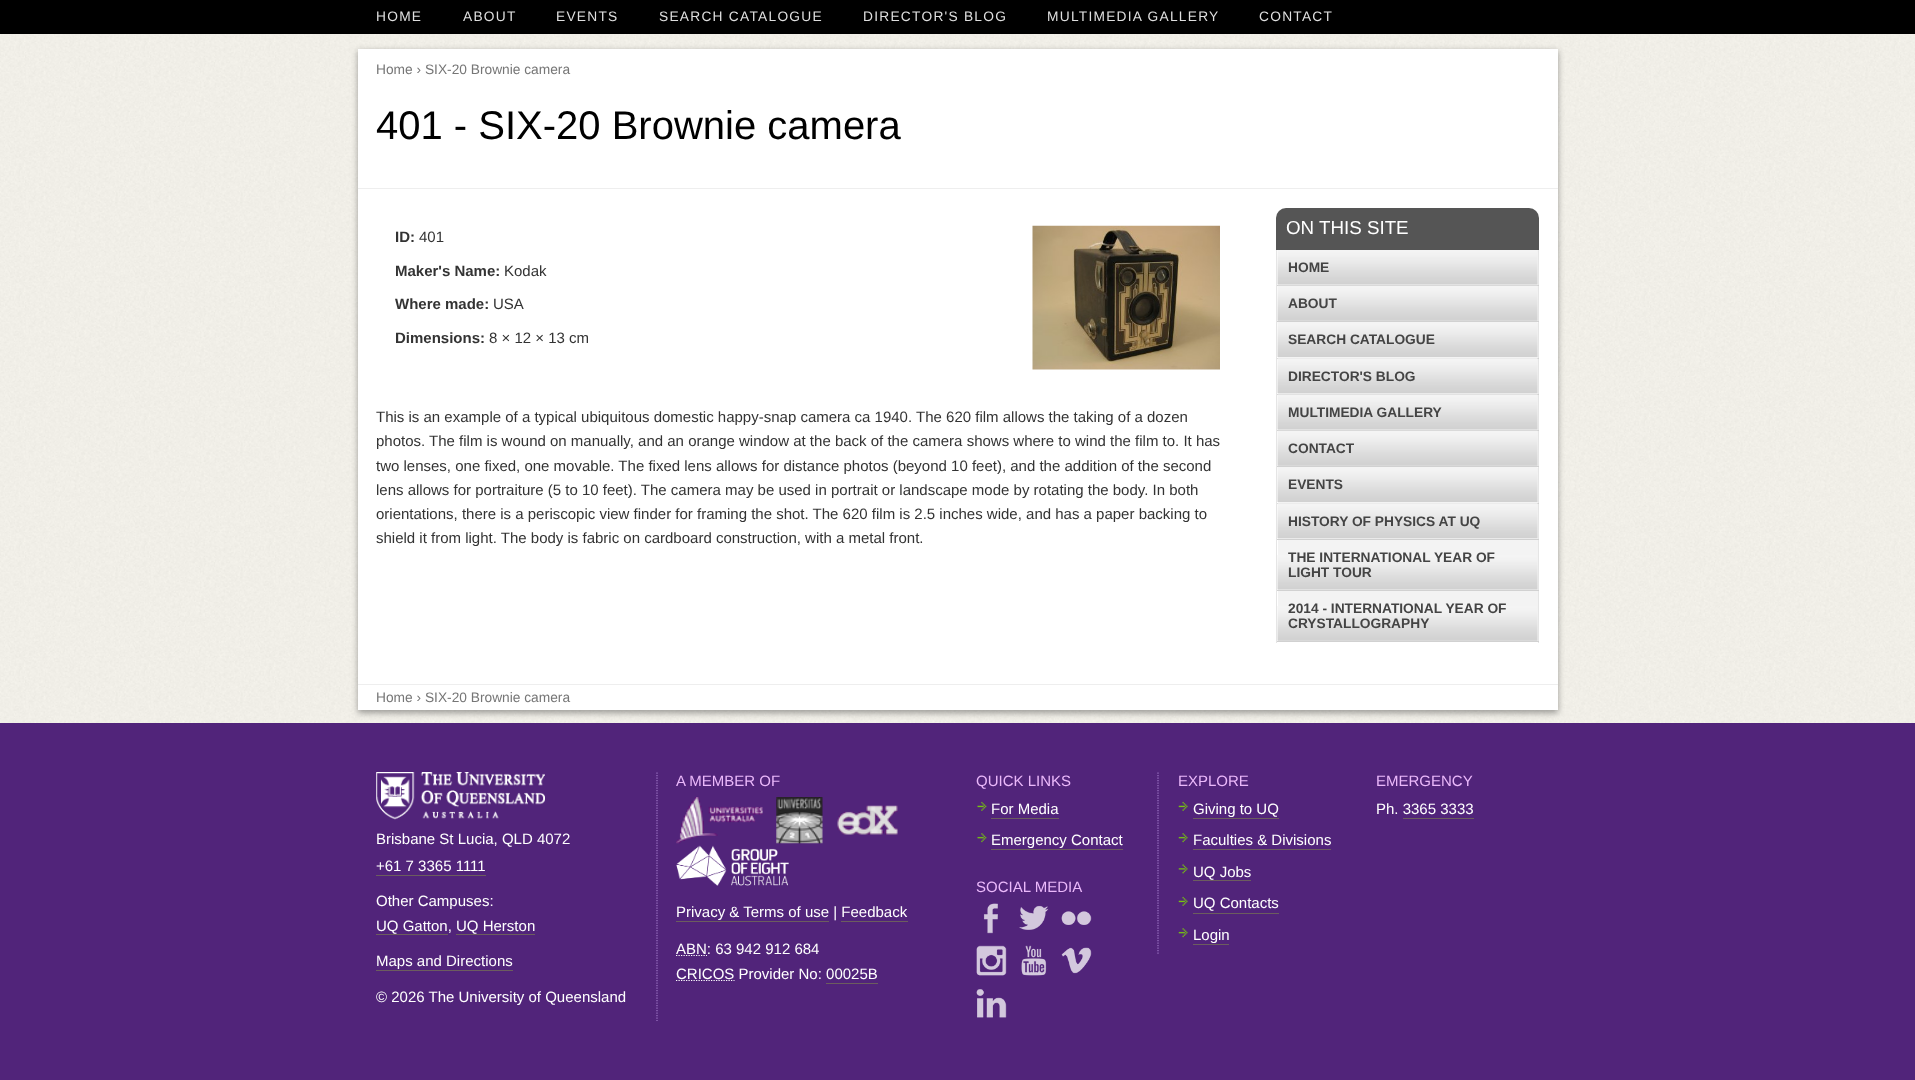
<!DOCTYPE html>
<meta charset="utf-8">
<style>body { margin: 0 } canvas { display: block }</style>
<canvas id="canvas" width="1915" height="1080"></canvas>
<script type="module">
  const canvas = document.getElementById("canvas");
  const g = canvas.getContext("2d");
  g.miterLimit = 4;
  g.fontKerning = "normal";
  function drawText(s, x, y, [font, color]) {
    g.font = font;
    g.fillStyle = color;
    g.fillText(s, x, y);
  }
  function fillBox(x, y, w, h, color) {
    g.fillStyle = color;
    g.fillRect(x, y, w, h);
  }
  async function drawPicture(src, x, y, w, h) {
    const img = new Image();
    img.src = src;
    await img.decode();
    g.drawImage(img, x, y, w, h);
  }

  const s1 = ["13.75px Liberation Sans", "#DFDFDF"];
  const s2 = ["13.75px Liberation Sans", "#767676"];
  const s3 = ["40px Liberation Sans", "#000000"];
  const s4 = ["bold 15px Liberation Sans", "#333333"];
  const s5 = ["15px Liberation Sans", "#333333"];
  const s6 = ["18.75px Liberation Sans", "#FFFFFF"];
  const s7 = ["bold 13.75px Liberation Sans", "#444444"];
  const s8 = ["15px Liberation Sans", "#EAB8FA"];
  const s9 = ["15px Liberation Sans", "#FFFFFF"];

  fillBox(0, 0, 1915, 1080, "#FFFFFF");
  await drawPicture("pic1.png", 0, 34, 1915, 689);
  fillBox(0, 0, 1915, 34, "#000000");
  g.letterSpacing = "1.25px";
  drawText("HOME", 376, 21, s1);
  drawText("ABOUT", 463, 21, s1);
  drawText("EVENTS", 556, 21, s1);
  drawText("SEARCH CATALOGUE", 659, 21, s1);
  drawText("DIRECTOR'S BLOG", 863, 21, s1);
  drawText("MULTIMEDIA GALLERY", 1047, 21, s1);
  drawText("CONTACT", 1259, 21, s1);
  g.fillStyle = "rgba(50, 50, 50, 0.45)";
  g.filter = "blur(3px)";
  g.beginPath();
  g.rect(358, 51, 1200, 662);
  g.fill();
  g.filter = "none";
  fillBox(358, 49, 1200, 661, "#FFFFFF");
  fillBox(358, 188, 1200, 1, "#EEEEEE");
  g.letterSpacing = "0px";
  drawText("Home › SIX-20 Brownie camera", 376, 74, s2);
  drawText("401 - SIX-20 Brownie camera", 376, 139, s3);
  drawText("ID:", 395, 242, s4);
  drawText("401", 419, 242, s5);
  drawText("Maker's Name:", 395, 276, s4);
  drawText("Kodak", 504, 276, s5);
  drawText("Where made:", 395, 309, s4);
  drawText("USA", 493, 309, s5);
  drawText("Dimensions:", 395, 343, s4);
  drawText("8 × 12 × 13 cm", 489, 343, s5);
  await drawPicture("pic2.png", 1032, 225, 188, 145);
  drawText("This is an example of a typical ubiquitous domestic happy-snap camera ca 1940. The 620 film allows the taking of a dozen", 376, 422, s5);
  drawText("photos. The film is wound on manually, and an orange window at the back of the camera shows where to wind the film to. It has", 376, 446, s5);
  drawText("two lenses, one fixed, one movable. The fixed lens allows for distance photos (beyond 10 feet), and the addition of the second", 376, 471, s5);
  drawText("lens allows for portraiture (5 to 10 feet). The camera may be used in portrait or landscape mode by rotating the body. In both", 376, 495, s5);
  drawText("orientations, there is a periscopic view finder for framing the shot. The 620 film is 2.5 inches wide, and has a paper backing to", 376, 519, s5);
  drawText("shield it from light. The body is fabric on cardboard construction, with a metal front.", 376, 543, s5);
  g.fillStyle = "#555555";
  g.beginPath();
  g.roundRect(1276, 208, 263, 42, [10, 10, 0, 0]);
  g.fill();
  drawText("ON THIS SITE", 1286, 234, s6);
  fillBox(1538, 250, 1, 393, "#E5E5E5");
  fillBox(1276, 285, 263, 1, "#D1D1D1");
  fillBox(1276, 250, 1, 36, "#E5E5E5");
  fillBox(1278, 250, 260, 35, "#F3F3F3");
  await drawPicture("pic3.png", 1277, 250, 261, 35);
  drawText("HOME", 1288, 272, s7);
  fillBox(1276, 321, 263, 1, "#D1D1D1");
  fillBox(1276, 286, 1, 37, "#E5E5E5");
  fillBox(1278, 286, 260, 35, "#F3F3F3");
  await drawPicture("pic4.png", 1277, 285, 261, 36);
  drawText("ABOUT", 1288, 308, s7);
  fillBox(1276, 358, 263, 1, "#D1D1D1");
  fillBox(1276, 323, 1, 36, "#E5E5E5");
  fillBox(1278, 323, 260, 35, "#F3F3F3");
  await drawPicture("pic5.png", 1277, 322, 261, 35);
  drawText("SEARCH CATALOGUE", 1288, 344, s7);
  fillBox(1276, 394, 263, 1, "#D1D1D1");
  fillBox(1276, 359, 1, 36, "#E5E5E5");
  fillBox(1278, 359, 260, 35, "#F3F3F3");
  await drawPicture("pic6.png", 1277, 358, 261, 36);
  drawText("DIRECTOR'S BLOG", 1288, 381, s7);
  fillBox(1276, 430, 263, 1, "#D1D1D1");
  fillBox(1276, 395, 1, 36, "#E5E5E5");
  fillBox(1278, 395, 260, 35, "#F3F3F3");
  await drawPicture("pic7.png", 1277, 394, 261, 36);
  drawText("MULTIMEDIA GALLERY", 1288, 417, s7);
  fillBox(1276, 466, 263, 1, "#D1D1D1");
  fillBox(1276, 431, 1, 37, "#E5E5E5");
  fillBox(1278, 431, 260, 35, "#F3F3F3");
  await drawPicture("pic4.png", 1277, 430, 261, 36);
  drawText("CONTACT", 1288, 453, s7);
  fillBox(1276, 503, 263, 1, "#D1D1D1");
  fillBox(1276, 468, 1, 36, "#E5E5E5");
  fillBox(1278, 468, 260, 35, "#F3F3F3");
  await drawPicture("pic5.png", 1277, 467, 261, 35);
  drawText("EVENTS", 1288, 489, s7);
  fillBox(1276, 539, 263, 1, "#D1D1D1");
  fillBox(1276, 504, 1, 36, "#E5E5E5");
  fillBox(1278, 504, 260, 35, "#F3F3F3");
  await drawPicture("pic6.png", 1277, 503, 261, 36);
  drawText("HISTORY OF PHYSICS AT UQ", 1288, 526, s7);
  fillBox(1276, 590, 263, 1, "#D1D1D1");
  fillBox(1276, 540, 1, 51, "#E5E5E5");
  fillBox(1278, 540, 260, 50, "#F3F3F3");
  await drawPicture("pic3.png", 1277, 555, 261, 35);
  drawText("THE INTERNATIONAL YEAR OF", 1288, 562, s7);
  drawText("LIGHT TOUR", 1288, 577, s7);
  fillBox(1276, 641, 263, 1, "#D1D1D1");
  fillBox(1276, 591, 1, 52, "#E5E5E5");
  fillBox(1278, 591, 260, 50, "#F3F3F3");
  await drawPicture("pic8.png", 1277, 606, 261, 35);
  drawText("2014 - INTERNATIONAL YEAR OF", 1288, 613, s7);
  drawText("CRYSTALLOGRAPHY", 1288, 628, s7);
  fillBox(358, 684, 1200, 1, "#EEEEEE");
  drawText("Home › SIX-20 Brownie camera", 376, 702, s2);
  fillBox(0, 723, 1915, 357, "#51247A");
  drawText("A MEMBER OF", 676, 786, s8);
  await drawPicture("pic9.png", 676, 797, 87, 47);
  await drawPicture("pic10.png", 776, 797, 47, 47);
  await drawPicture("pic11.png", 837, 805, 61, 30);
  await drawPicture("pic12.png", 676, 845, 113, 41);
  drawText("Privacy & Terms of use | Feedback", 676, 917, s9);
  fillBox(676, 921, 153, 1, "#6C5D5E");
  fillBox(841, 921, 67, 1, "#6C5D5E");
  g.beginPath();
  g.moveTo(676, 955.5);
  g.lineTo(707, 955.5);
  g.strokeStyle = "#FFFFFF";
  g.lineWidth = 1.2;
  g.setLineDash([1.25, 1.25]);
  g.stroke();
  drawText("ABN: 63 942 912 684", 676, 954, s9);
  g.beginPath();
  g.moveTo(676, 980.5);
  g.lineTo(734.5, 980.5);
  g.stroke();
  drawText("CRICOS Provider No: 00025B", 676, 979, s9);
  fillBox(826, 983, 52, 1, "#6C5D5E");
  drawText("QUICK LINKS", 976, 786, s8);
  await drawPicture("pic13.png", 977, 801, 10, 10);
  drawText("For Media", 991, 814, s9);
  fillBox(991, 818, 68, 1, "#6C5D5E");
  await drawPicture("pic14.png", 977, 833, 10, 10);
  drawText("Emergency Contact", 991, 845, s9);
  fillBox(991, 849, 132, 1, "#6C5D5E");
  drawText("SOCIAL MEDIA", 976, 892, s8);
  await drawPicture("pic15.png", 983, 903, 15, 31);
  await drawPicture("pic16.png", 1019, 905, 30, 25);
  await drawPicture("pic17.png", 1061, 911, 31, 14);
  await drawPicture("pic18.png", 976, 945, 31, 31);
  await drawPicture("pic19.png", 1021, 945, 26, 31);
  await drawPicture("pic20.png", 1061, 947, 31, 27);
  await drawPicture("pic21.png", 976, 989, 31, 29);
  g.beginPath();
  g.moveTo(1158, 772.5);
  g.lineTo(1158, 955);
  g.strokeStyle = "#9E76C6";
  g.stroke();
  drawText("EXPLORE", 1178, 786, s8);
  await drawPicture("pic22.png", 1178, 801, 10, 10);
  drawText("Giving to UQ", 1193, 814, s9);
  fillBox(1193, 818, 86, 1, "#6C5D5E");
  await drawPicture("pic23.png", 1178, 833, 10, 10);
  drawText("Faculties & Divisions", 1193, 845, s9);
  fillBox(1193, 849, 138, 1, "#6C5D5E");
  await drawPicture("pic24.png", 1178, 864, 10, 10);
  drawText("UQ Jobs", 1193, 877, s9);
  fillBox(1193, 880, 58, 1, "#6C5D5E");
  await drawPicture("pic25.png", 1178, 896, 10, 10);
  drawText("UQ Contacts", 1193, 908, s9);
  fillBox(1193, 913, 86, 1, "#6C5D5E");
  await drawPicture("pic23.png", 1178, 928, 10, 10);
  drawText("Login", 1193, 940, s9);
  fillBox(1193, 944, 36, 1, "#6C5D5E");
  drawText("EMERGENCY", 1376, 786, s8);
  drawText("Ph. 3365 3333", 1376, 814, s9);
  fillBox(1403, 818, 71, 1, "#6C5D5E");
  g.beginPath();
  g.moveTo(657, 772.5);
  g.lineTo(657, 1021);
  g.stroke();
  await drawPicture("pic26.png", 376, 772, 169, 48);
  drawText("Brisbane St Lucia, QLD 4072", 376, 844, s9);
  drawText("+61 7 3365 1111", 376, 871, s9);
  fillBox(376, 875, 110, 1, "#6C5D5E");
  drawText("Other Campuses:", 376, 906, s9);
  drawText("UQ Gatton, UQ Herston", 376, 931, s9);
  fillBox(376, 934, 72, 1, "#6C5D5E");
  fillBox(456, 934, 79, 1, "#6C5D5E");
  drawText("Maps and Directions", 376, 966, s9);
  fillBox(376, 970, 137, 1, "#6C5D5E");
  drawText("© 2026 The University of Queensland", 376, 1002, s9);
</script>
